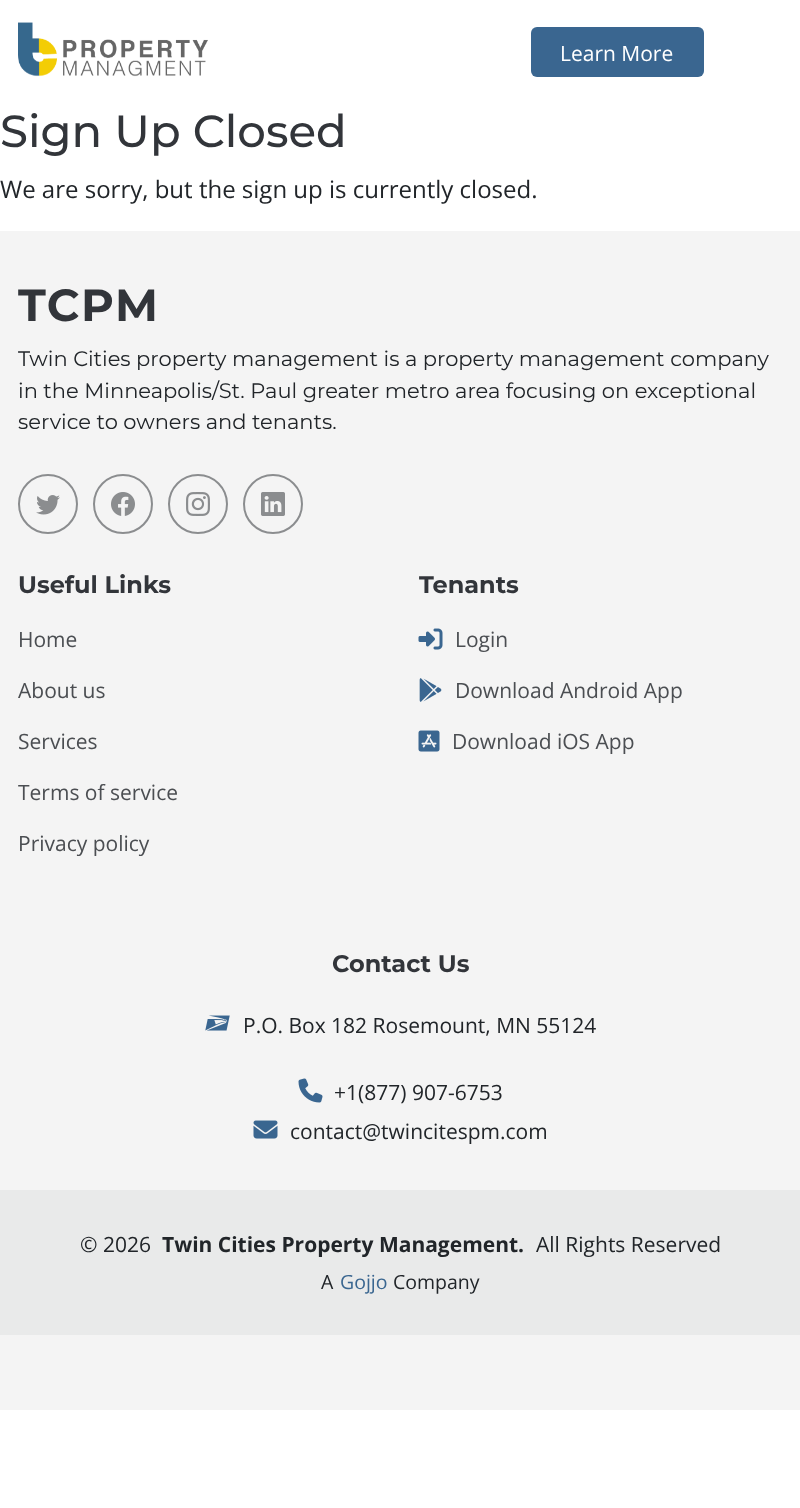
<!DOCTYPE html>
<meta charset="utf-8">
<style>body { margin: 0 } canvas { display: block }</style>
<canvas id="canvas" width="800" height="1508"></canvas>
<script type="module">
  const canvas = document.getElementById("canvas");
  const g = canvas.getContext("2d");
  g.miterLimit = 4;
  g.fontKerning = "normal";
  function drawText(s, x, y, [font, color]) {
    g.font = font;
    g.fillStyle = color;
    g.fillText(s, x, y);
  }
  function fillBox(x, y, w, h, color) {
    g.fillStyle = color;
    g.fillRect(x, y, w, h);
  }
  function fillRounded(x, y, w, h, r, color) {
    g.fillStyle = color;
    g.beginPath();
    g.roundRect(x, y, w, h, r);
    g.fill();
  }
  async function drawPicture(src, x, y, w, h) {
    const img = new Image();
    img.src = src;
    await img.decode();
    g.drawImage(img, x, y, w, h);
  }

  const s1 = ["21px Open Sans", "#FFFFFF"];
  const s2 = ["500 45px Montserrat", "#32353A"];
  const s3 = ["24px Open Sans", "#212529"];
  const s4 = ["bold 45px Montserrat", "#32353A"];
  const s5 = ["21px Montserrat", "#212529"];
  const s6 = ["bold 24px Montserrat", "#32353A"];
  const s7 = ["21px Open Sans", "#4B4E52"];
  const s8 = ["21px Open Sans", "#212529"];
  const s9 = ["bold 21px Open Sans", "#212529"];
  const s10 = ["19.5px Open Sans", "#212529"];
  const s11 = ["19.5px Open Sans", "#3A6690"];

  fillBox(0, 0, 800, 1508, "#FFFFFF");
  await drawPicture("pic1.png", 18, 22, 190, 55);
  fillRounded(531, 27, 173, 50, 6, "#3A6690");
  drawText("Learn More", 560, 61, s1);
  drawText("Sign Up Closed", 0, 147, s2);
  drawText("We are sorry, but the sign up is currently closed.", 0, 198, s3);
  fillBox(0, 231, 800, 1179, "#F4F4F4");
  g.letterSpacing = "1.5px";
  drawText("TCPM", 18, 321, s4);
  g.letterSpacing = "0px";
  drawText("Twin Cities property management is a property management company", 18, 366, s5);
  drawText("in the Minneapolis/St. Paul greater metro area focusing on exceptional", 18, 398, s5);
  drawText("service to owners and tenants.", 18, 429, s5);
  g.beginPath();
  g.arc(48, 504, 29, 0, Math.PI * 2);
  g.strokeStyle = "#8B8D8F";
  g.lineWidth = 2;
  g.stroke();
  await drawPicture("pic2.png", 36, 495, 24, 20);
  g.beginPath();
  g.arc(123, 504, 29, 0, Math.PI * 2);
  g.stroke();
  await drawPicture("pic3.png", 111, 492, 24, 24);
  g.beginPath();
  g.arc(198, 504, 29, 0, Math.PI * 2);
  g.stroke();
  await drawPicture("pic4.png", 186, 492, 24, 24);
  g.beginPath();
  g.arc(273, 504, 29, 0, Math.PI * 2);
  g.stroke();
  await drawPicture("pic5.png", 261, 492, 24, 24);
  drawText("Useful Links", 18, 593, s6);
  drawText("Home", 18, 647, s7);
  drawText("About us", 18, 698, s7);
  drawText("Services", 18, 749, s7);
  drawText("Terms of service", 18, 800, s7);
  drawText("Privacy policy", 18, 851, s7);
  drawText("Tenants", 419, 593, s6);
  await drawPicture("pic6.png", 418, 628, 25, 22);
  drawText("Login", 455, 647, s7);
  await drawPicture("pic7.png", 419, 678, 23, 24);
  drawText("Download Android App", 455, 698, s7);
  await drawPicture("pic8.png", 418, 730, 22, 22);
  drawText("Download iOS App", 452, 749, s7);
  drawText("Contact Us", 332, 972, s6);
  await drawPicture("pic9.png", 205, 1015, 25, 16);
  drawText("P.O. Box 182 Rosemount, MN 55124", 243, 1033, s8);
  await drawPicture("pic10.png", 298, 1078, 25, 25);
  drawText("+1(877) 907-6753", 334, 1100, s8);
  await drawPicture("pic11.png", 253, 1120, 25, 19);
  drawText("contact@twincitespm.com", 290, 1139, s8);
  fillBox(0, 1190, 800, 145, "#E9EAEA");
  drawText("© 2026", 80, 1252, s8);
  drawText("Twin Cities Property Management.", 162, 1252, s9);
  drawText("All Rights Reserved", 536, 1252, s8);
  drawText("A", 321, 1289, s10);
  drawText("Gojjo", 340, 1289, s11);
  drawText("Company", 393, 1289, s10);
</script>
